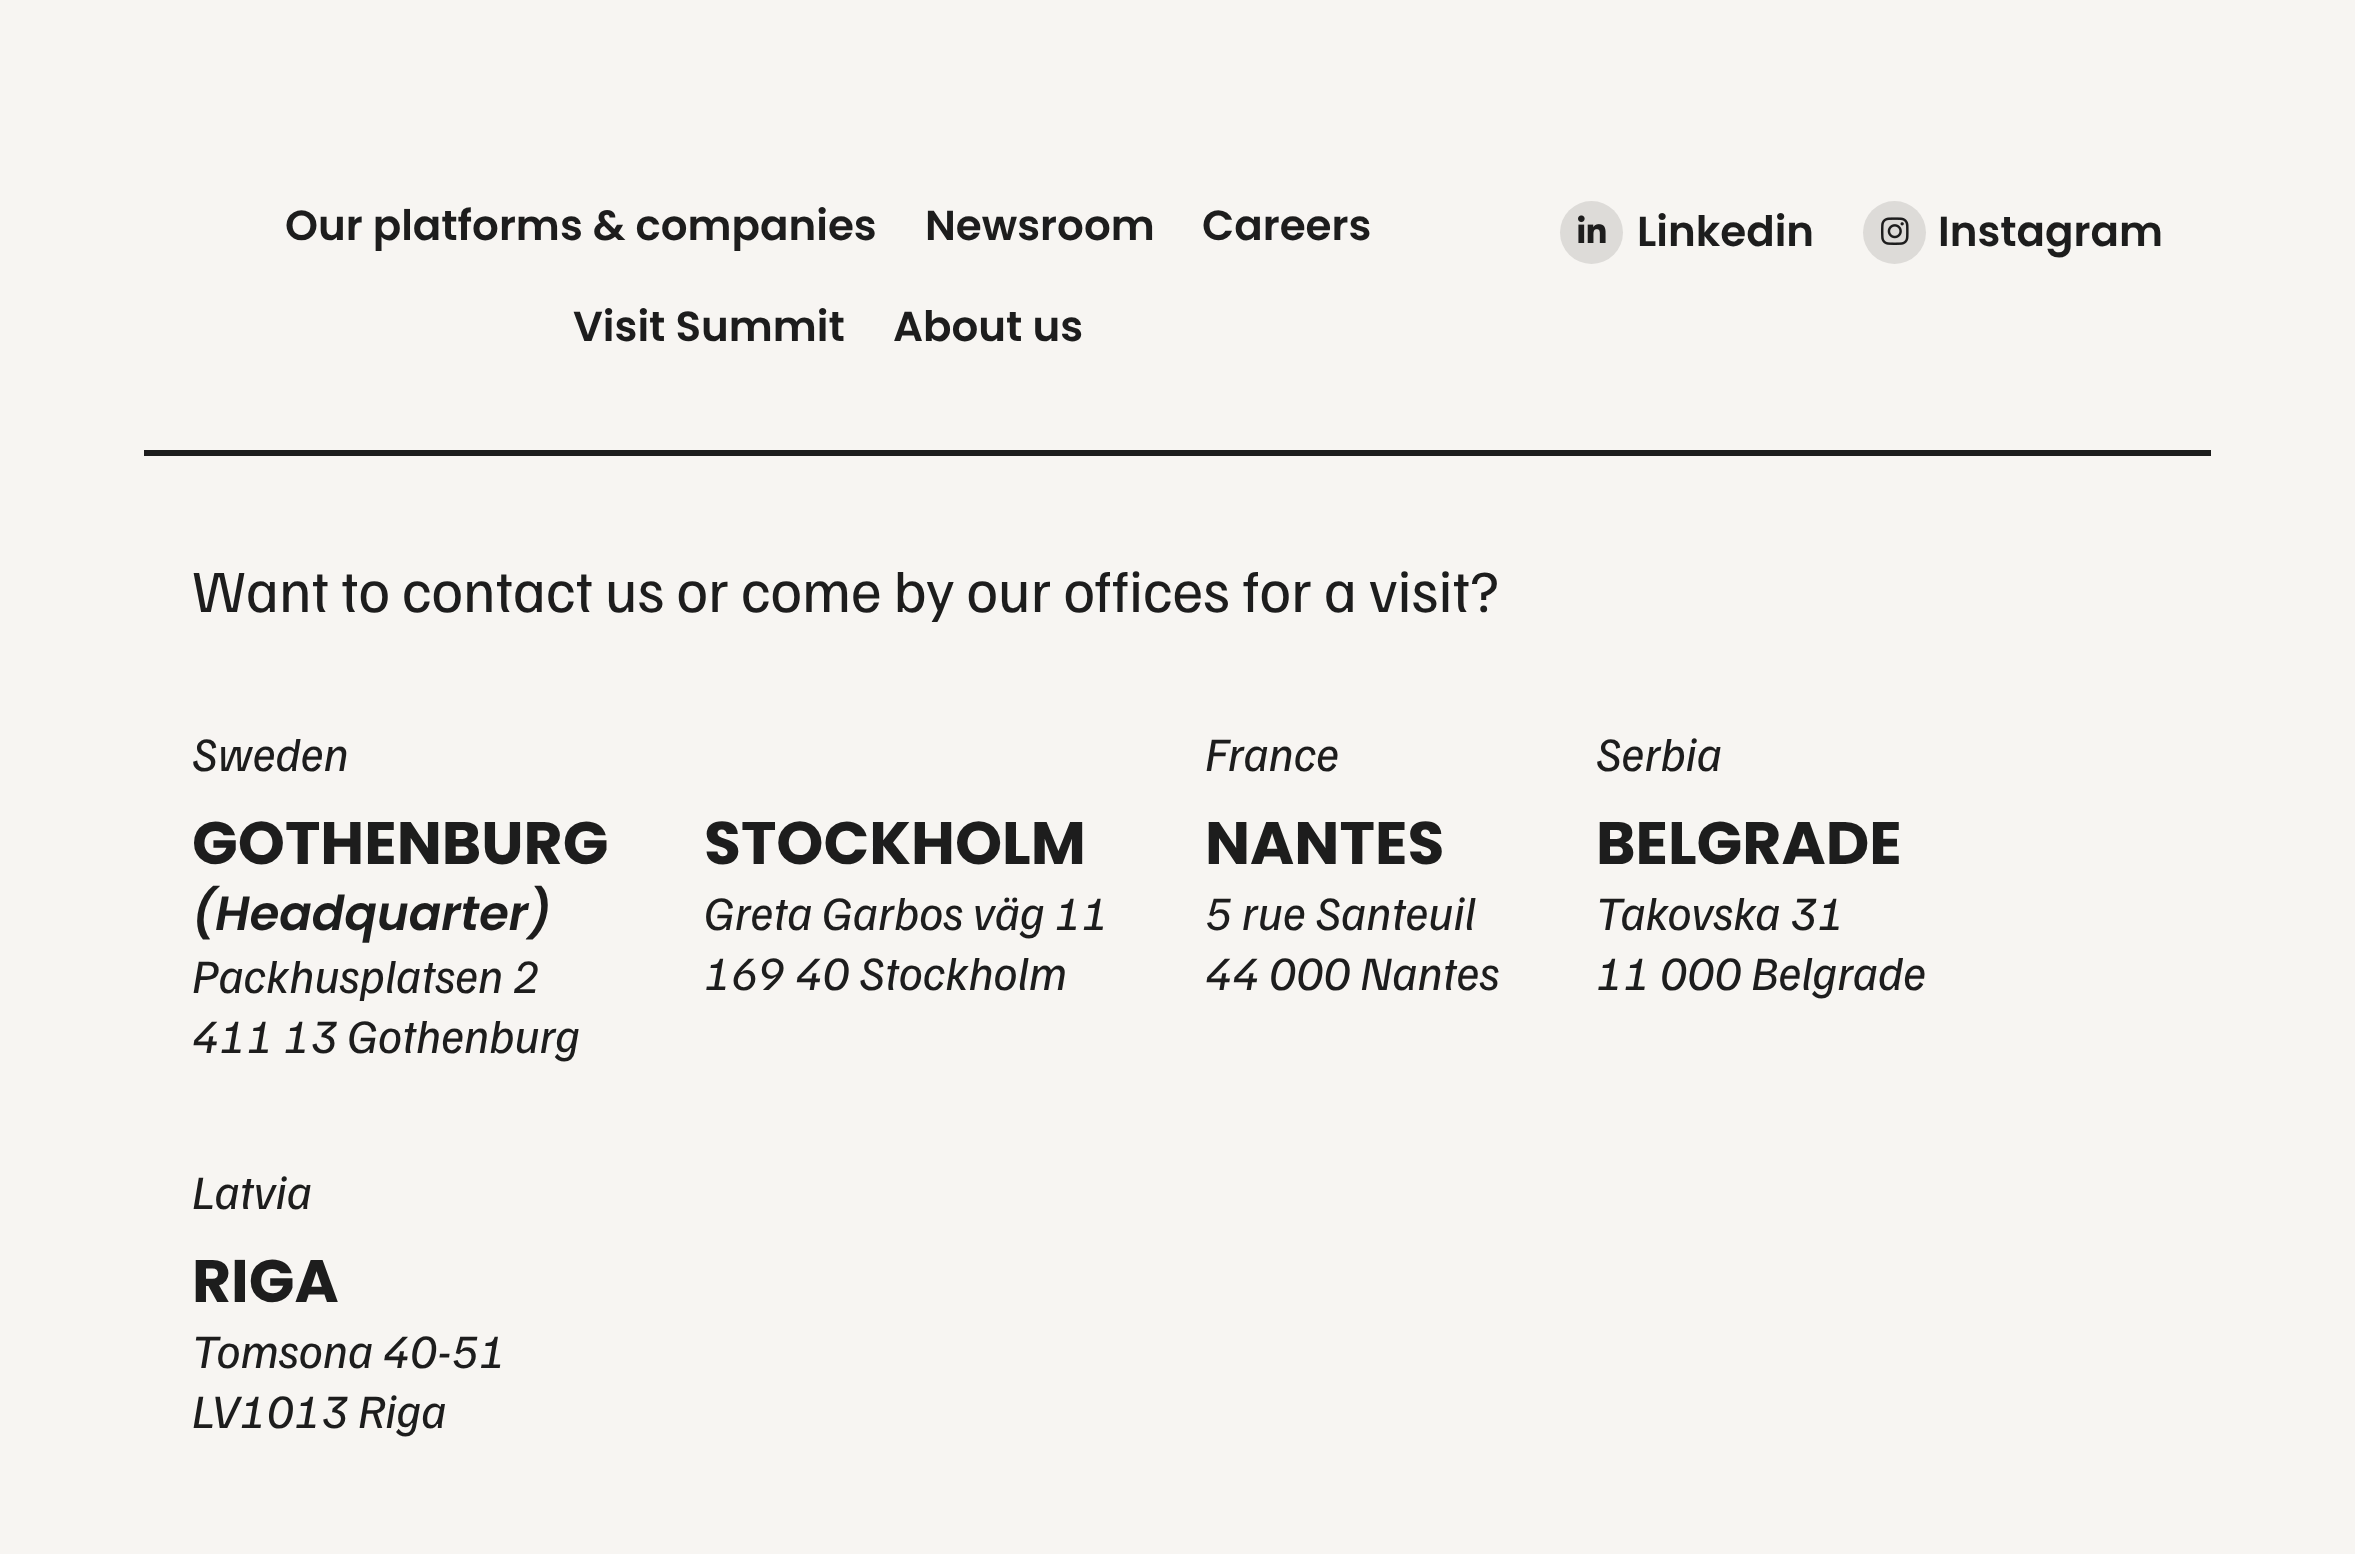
<!DOCTYPE html>
<meta charset="utf-8">
<style>body { margin: 0 } canvas { display: block }</style>
<canvas id="canvas" width="2355" height="1554"></canvas>
<script type="module">
  const canvas = document.getElementById("canvas");
  const g = canvas.getContext("2d");
  g.miterLimit = 4;
  g.fontKerning = "normal";
  function drawText(s, x, y, [font, color]) {
    g.font = font;
    g.fillStyle = color;
    g.fillText(s, x, y);
  }
  function fillBox(x, y, w, h, color) {
    g.fillStyle = color;
    g.fillRect(x, y, w, h);
  }
  async function drawPicture(src, x, y, w, h) {
    const img = new Image();
    img.src = src;
    await img.decode();
    g.drawImage(img, x, y, w, h);
  }

  const s1 = ["600 42px Poppins", "#1D1D1D"];
  const s2 = ["60px Familjen Grotesk", "#1D1D1D"];
  const s3 = ["italic 48px Familjen Grotesk", "#1D1D1D"];
  const s4 = ["bold 60px Poppins", "#1D1D1D"];
  const s5 = ["italic 600 48px Poppins", "#1D1D1D"];

  fillBox(0, 0, 2355, 1554, "#F7F5F2");
  fillBox(144, 450, 2067, 6, "#1D1D1D");
  drawText("Our platforms & companies", 285, 240, s1);
  drawText("Newsroom", 925, 240, s1);
  drawText("Careers", 1202, 240, s1);
  drawText("Visit Summit", 573, 341, s1);
  drawText("About us", 893, 341, s1);
  g.fillStyle = "#DDDBD8";
  g.beginPath();
  g.arc(1591.5, 232.5, 31.5, 0, Math.PI * 2);
  g.fill();
  await drawPicture("pic1.png", 1578, 215, 28, 28);
  drawText("Linkedin", 1637, 246, s1);
  g.fillStyle = "#DDDBD8";
  g.beginPath();
  g.arc(1894.5, 232.5, 31.5, 0, Math.PI * 2);
  g.fill();
  await drawPicture("pic2.png", 1881, 217, 28, 28);
  drawText("Instagram", 1938, 246, s1);
  drawText("Want to contact us or come by our offices for a visit?", 192, 612, s2);
  drawText("Sweden", 192, 771, s3);
  drawText("GOTHENBURG", 192, 864, s4);
  drawText("(Headquarter)", 192, 930, s5);
  drawText("Packhusplatsen 2", 192, 993, s3);
  drawText("411 13 Gothenburg", 192, 1053, s3);
  drawText("STOCKHOLM", 704, 864, s4);
  drawText("Greta Garbos väg 11", 704, 930, s3);
  drawText("169 40 Stockholm", 704, 990, s3);
  drawText("France", 1205, 771, s3);
  drawText("NANTES", 1205, 864, s4);
  drawText("5 rue Santeuil", 1205, 930, s3);
  drawText("44 000 Nantes", 1205, 990, s3);
  drawText("Serbia", 1596, 771, s3);
  drawText("BELGRADE", 1596, 864, s4);
  drawText("Takovska 31", 1596, 930, s3);
  drawText("11 000 Belgrade", 1596, 990, s3);
  drawText("Latvia", 192, 1209, s3);
  drawText("RIGA", 192, 1302, s4);
  drawText("Tomsona 40-51", 192, 1368, s3);
  drawText("LV1013 Riga", 192, 1428, s3);
</script>
